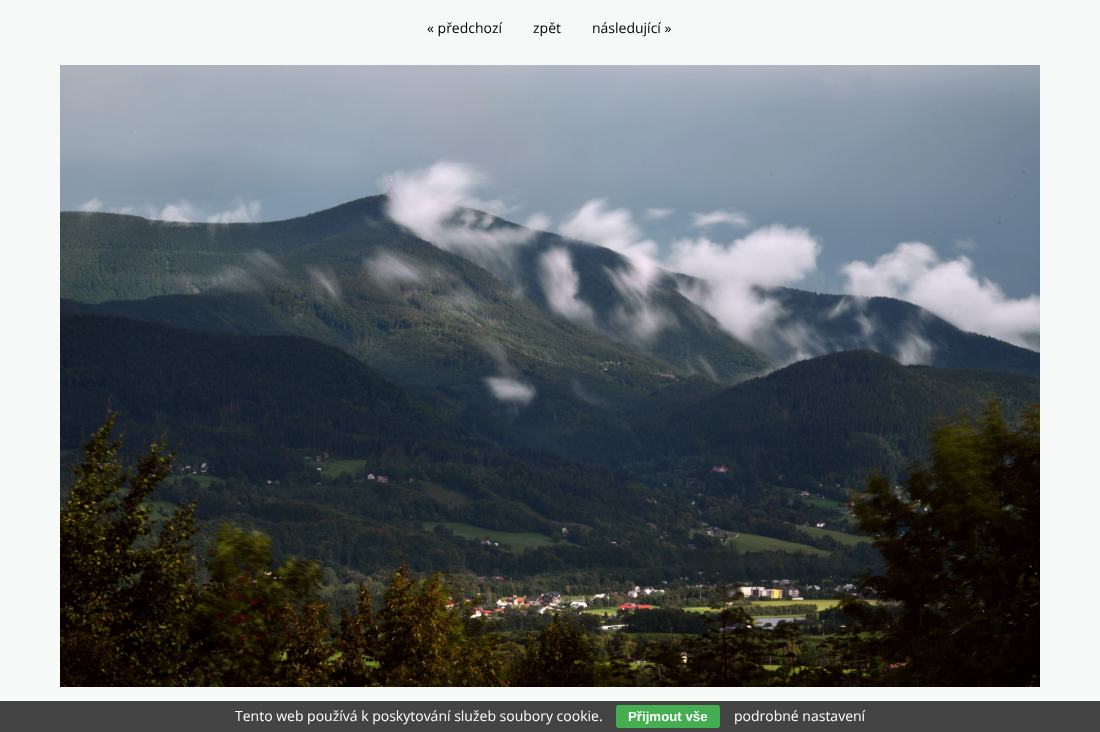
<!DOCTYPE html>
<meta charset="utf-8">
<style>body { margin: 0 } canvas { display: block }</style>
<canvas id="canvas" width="1100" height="732"></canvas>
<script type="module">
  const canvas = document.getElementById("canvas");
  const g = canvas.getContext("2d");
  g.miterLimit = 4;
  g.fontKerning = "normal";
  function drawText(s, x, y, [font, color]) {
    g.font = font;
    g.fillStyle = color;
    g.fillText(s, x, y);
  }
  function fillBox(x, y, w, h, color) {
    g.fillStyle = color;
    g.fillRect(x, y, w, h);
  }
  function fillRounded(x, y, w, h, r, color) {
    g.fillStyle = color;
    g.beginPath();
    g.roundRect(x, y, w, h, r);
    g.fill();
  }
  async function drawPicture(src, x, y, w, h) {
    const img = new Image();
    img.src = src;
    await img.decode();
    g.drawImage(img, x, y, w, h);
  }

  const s1 = ["14px Open Sans", "#000000"];
  const s2 = ["14px Open Sans", "#FFFFFF"];
  const s3 = ["bold 13.25px Liberation Sans", "#FFFFFF"];

  fillBox(0, 0, 1100, 732, "#F7F8F8");
  drawText("« předchozí", 427, 33, s1);
  drawText("zpět", 533, 33, s1);
  drawText("následující »", 592, 33, s1);
  await drawPicture("pic1.png", 60, 65, 980, 622);
  fillBox(0, 701, 1100, 31, "#444444");
  drawText("Tento web používá k poskytování služeb soubory cookie.", 235, 721, s2);
  fillRounded(616, 705, 104, 23, 3, "#45AE52");
  drawText("Přijmout vše", 628, 721, s3);
  drawText("podrobné nastavení", 734, 721, s2);
</script>
